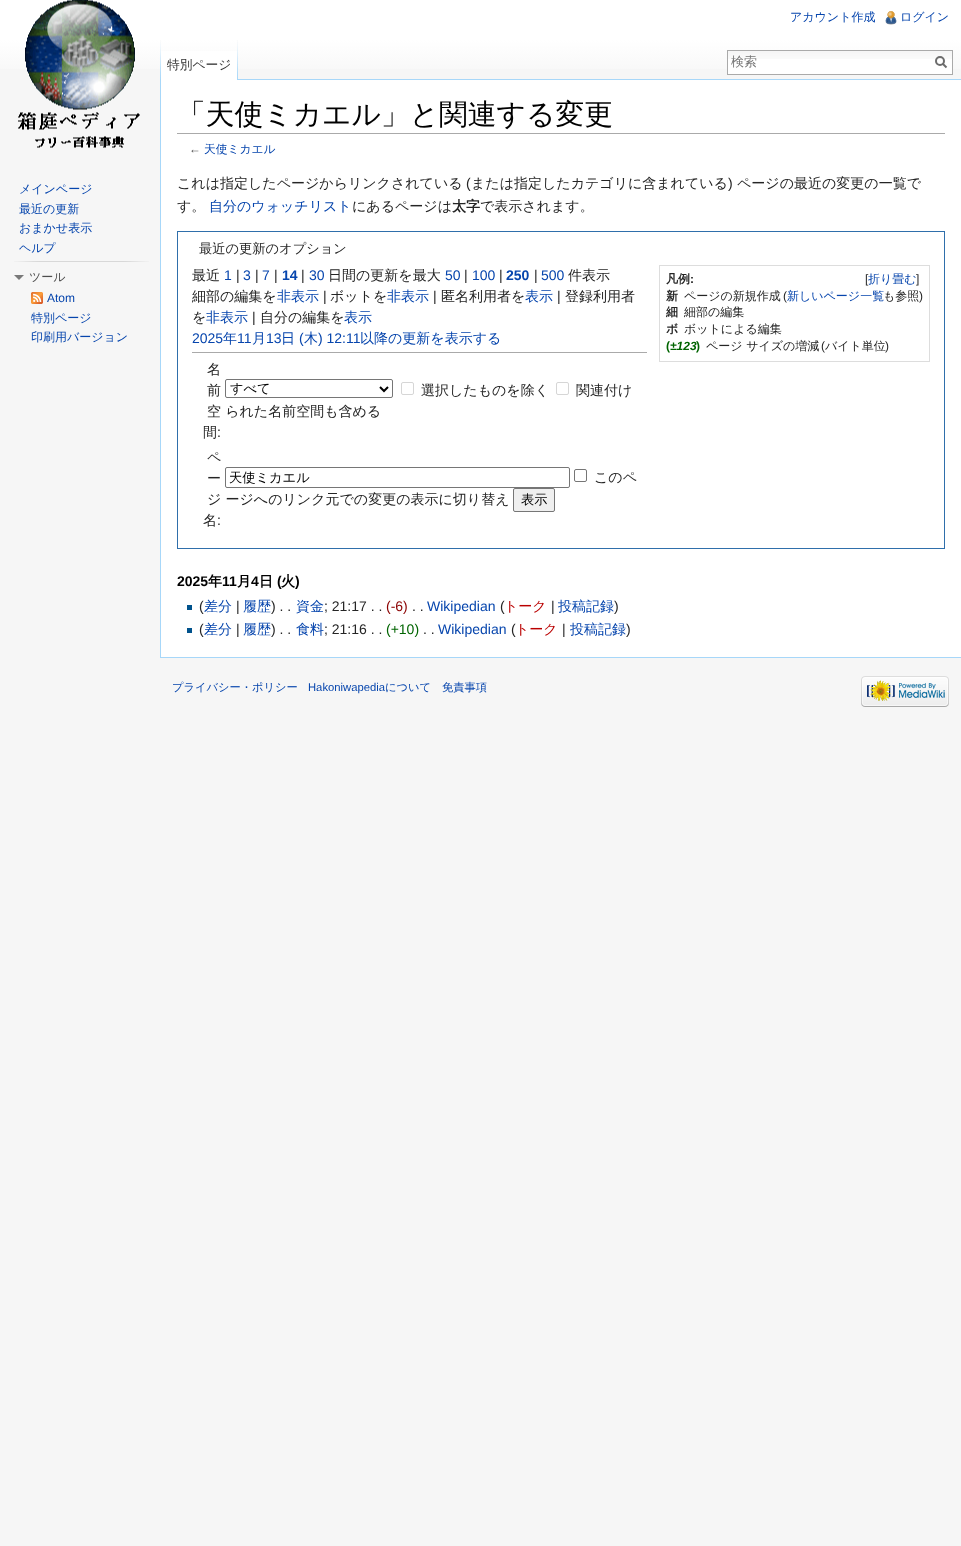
<!DOCTYPE html>
<meta charset="utf-8">
<style>body { margin: 0 } canvas { display: block }</style>
<canvas id="canvas" width="961" height="1546"></canvas>
<script type="module">
  const canvas = document.getElementById("canvas");
  const g = canvas.getContext("2d");
  g.miterLimit = 4;
  g.fontKerning = "normal";
  function drawText(s, x, y, [font, color]) {
    g.font = font;
    g.fillStyle = color;
    g.fillText(s, x, y);
  }
  function fillBox(x, y, w, h, color) {
    g.fillStyle = color;
    g.fillRect(x, y, w, h);
  }
  async function drawPicture(src, x, y, w, h) {
    const img = new Image();
    img.src = src;
    await img.decode();
    g.drawImage(img, x, y, w, h);
  }
  let gradient;

  const s1 = ["500 12px WenQuanYi Zen Hei", "#0645AD"];
  const s2 = ["500 12.75px WenQuanYi Zen Hei", "#333333"];
  const s3 = ["500 13px WenQuanYi Zen Hei", "#757575"];
  const s4 = ["500 12px WenQuanYi Zen Hei", "#4D4D4D"];
  const s5 = ["12px Liberation Sans", "#0645AD"];
  const s6 = ["500 28.75px WenQuanYi Zen Hei", "#000000"];
  const s7 = ["11.75px Liberation Sans", "#545454"];
  const s8 = ["500 11.75px WenQuanYi Zen Hei", "#0645AD"];
  const s9 = ["500 14px WenQuanYi Zen Hei", "#252525"];
  const s10 = ["14px Liberation Sans", "#252525"];
  const s11 = ["500 14px WenQuanYi Zen Hei", "#0645AD"];
  const s12 = ["bold 14px WenQuanYi Zen Hei", "#252525"];
  const s13 = ["500 13.25px WenQuanYi Zen Hei", "#252525"];
  const s14 = ["14px Liberation Sans", "#0645AD"];
  const s15 = ["bold 14px Liberation Sans", "#0645AD"];
  const s16 = ["bold 12px WenQuanYi Zen Hei", "#252525"];
  const s17 = ["bold 12px Liberation Sans", "#252525"];
  const s18 = ["12px Liberation Sans", "#252525"];
  const s19 = ["500 12px WenQuanYi Zen Hei", "#252525"];
  const s20 = ["bold 12px Liberation Sans", "#006400"];
  const s21 = ["italic bold 12px Liberation Sans", "#006400"];
  const s22 = ["500 13.25px WenQuanYi Zen Hei", "#000000"];
  const s23 = ["bold 14px Liberation Sans", "#000000"];
  const s24 = ["bold 14px WenQuanYi Zen Hei", "#000000"];
  const s25 = ["14px Liberation Sans", "#8B0000"];
  const s26 = ["500 14px WenQuanYi Zen Hei", "#BA0000"];
  const s27 = ["14px Liberation Sans", "#006400"];
  const s28 = ["500 11.25px WenQuanYi Zen Hei", "#0645AD"];
  const s29 = ["11.25px Liberation Sans", "#0645AD"];

  fillBox(0, 0, 961, 1546, "#F6F6F6");
  gradient = g.createLinearGradient(481, 0, 481, 80);
  gradient.addColorStop(0.5, "#FFFFFF");
  gradient.addColorStop(1, "#F6F6F6");
  g.fillStyle = gradient;
  g.fillRect(0, 0, 961, 69);
  drawText("アカウント作成", 790, 21, s1);
  await drawPicture("pic1.png", 885, 11, 12, 14);
  drawText("ログイン", 900, 21, s1);
  await drawPicture("pic2.png", 160, 40, 1, 39);
  fillBox(161, 51, 76, 29, "#FFFFFF");
  await drawPicture("pic3.png", 237, 40, 1, 40);
  drawText("特別ページ", 167, 69, s2);
  fillBox(728, 59, 224, 15, "#FFFFFF");
  await drawPicture("pic4.png", 728, 51, 224, 8);
  g.strokeStyle = "#AAAAAA";
  g.strokeRect(727.5, 50.5, 225, 24);
  drawText("検索", 731, 66, s3);
  g.beginPath();
  g.moveTo(946.5, 67.5);
  g.lineTo(942.5, 63.5);
  g.strokeStyle = "#6C6C6C";
  g.lineWidth = 2;
  g.stroke();
  g.beginPath();
  g.arc(940, 61, 4, 0, Math.PI * 2);
  g.stroke();
  await drawPicture("pic5.png", 18, 0, 122, 148);
  drawText("メインページ", 19, 193, s1);
  drawText("最近の更新", 19, 213, s1);
  drawText("おまかせ表示", 19, 232, s1);
  drawText("ヘルプ", 19, 252, s1);
  await drawPicture("pic6.png", 14, 261, 135, 1);
  g.fillStyle = "#797979";
  g.beginPath();
  g.moveTo(24, 275);
  g.lineTo(19, 280);
  g.lineTo(14, 275);
  g.closePath();
  g.fill();
  drawText("ツール", 29, 281, s4);
  await drawPicture("pic7.png", 31, 292, 12, 12);
  drawText("Atom", 47, 302, s5);
  drawText("特別ページ", 31, 322, s1);
  drawText("印刷用バージョン", 31, 341, s1);
  fillBox(161, 80, 800, 577, "#FFFFFF");
  fillBox(238, 79, 723, 1, "#A7D7F9");
  fillBox(160, 657, 801, 1, "#A7D7F9");
  fillBox(160, 79, 1, 579, "#A7D7F9");
  fillBox(177, 133, 768, 1, "#AAAAAA");
  drawText("「天使ミカエル」と関連する変更", 177, 124, s6);
  drawText("←", 189, 153, s7);
  drawText("天使ミカエル", 204, 153, s8);
  drawText("これは指定したページからリンクされている", 177, 188, s9);
  drawText("(", 466, 188, s10);
  drawText("または指定したカテゴリに含まれている", 471, 188, s9);
  drawText(")", 728, 188, s10);
  drawText("ページの最近の変更の一覧で", 737, 188, s9);
  drawText("す。", 177, 211, s9);
  drawText("自分のウォッチリスト", 209, 211, s11);
  drawText("にあるページは", 352, 211, s9);
  drawText("太字", 452, 211, s12);
  drawText("で表示されます。", 480, 211, s9);
  g.strokeStyle = "#2F6FAB";
  g.lineWidth = 1;
  g.strokeRect(177.5, 231.5, 767, 317);
  drawText("最近の更新のオプション", 199, 253, s13);
  drawText("最近", 192, 280, s9);
  drawText("1", 224, 280, s14);
  drawText("|", 236, 280, s10);
  drawText("3", 243, 280, s14);
  drawText("|", 255, 280, s10);
  drawText("7", 262, 280, s14);
  drawText("|", 274, 280, s10);
  drawText("14", 282, 280, s15);
  drawText("|", 301, 280, s10);
  drawText("30", 309, 280, s14);
  drawText("日間の更新を最大", 328, 280, s9);
  drawText("50", 445, 280, s14);
  drawText("|", 464, 280, s10);
  drawText("100", 472, 280, s14);
  drawText("|", 499, 280, s10);
  drawText("250", 506, 280, s15);
  drawText("|", 534, 280, s10);
  drawText("500", 541, 280, s14);
  drawText("件表示", 568, 280, s9);
  g.strokeStyle = "#DDDDDD";
  g.strokeRect(659.5, 265.5, 270, 96);
  drawText("凡例", 666, 283, s16);
  drawText(":", 690, 283, s17);
  drawText("[", 865, 283, s18);
  drawText("折り畳む", 868, 283, s1);
  drawText("]", 916, 283, s18);
  drawText("新", 666, 300, s16);
  drawText("ページの新規作成", 684, 300, s19);
  drawText("(", 783, 300, s18);
  drawText("新しいページ一覧", 787, 300, s1);
  drawText("も参照", 883, 300, s19);
  drawText(")", 919, 300, s18);
  drawText("細", 666, 316, s16);
  drawText("細部の編集", 684, 316, s19);
  drawText("ボ", 666, 333, s16);
  drawText("ボットによる編集", 684, 333, s19);
  drawText("(", 666, 350, s20);
  drawText("±123", 670, 350, s21);
  drawText(")", 696, 350, s20);
  drawText("ページ サイズの増減", 706, 350, s19);
  drawText("(", 821, 350, s18);
  drawText("バイト単位", 825, 350, s19);
  drawText(")", 885, 350, s18);
  drawText("細部の編集を", 192, 301, s9);
  drawText("非表示", 277, 301, s11);
  drawText("|", 323, 301, s10);
  drawText("ボットを", 330, 301, s9);
  drawText("非表示", 387, 301, s11);
  drawText("|", 433, 301, s10);
  drawText("匿名利用者を", 441, 301, s9);
  drawText("表示", 525, 301, s11);
  drawText("|", 557, 301, s10);
  drawText("登録利用者", 565, 301, s9);
  drawText("を", 192, 322, s9);
  drawText("非表示", 206, 322, s11);
  drawText("|", 252, 322, s10);
  drawText("自分の編集を", 260, 322, s9);
  drawText("表示", 344, 322, s11);
  drawText("2025", 192, 343, s14);
  drawText("年", 223, 343, s11);
  drawText("11", 237, 343, s14);
  drawText("月", 252, 343, s11);
  drawText("13", 266, 343, s14);
  drawText("日", 281, 343, s11);
  drawText("(", 299, 343, s14);
  drawText("木", 304, 343, s11);
  drawText(") 12:11", 318, 343, s14);
  drawText("以降の更新を表示する", 360, 343, s11);
  fillBox(192, 352, 455, 1, "#AAAAAA");
  drawText("名", 207, 374, s9);
  drawText("前", 207, 395, s9);
  drawText("空 られた名前空間も含める", 207, 416, s9);
  drawText("間", 203, 437, s9);
  drawText(":", 217, 437, s10);
  g.beginPath();
  g.roundRect(225.5, 379.5, 167, 18, 1.5);
  g.strokeStyle = "#767676";
  g.stroke();
  g.beginPath();
  g.moveTo(380, 387);
  g.lineTo(384, 391);
  g.lineTo(388, 387);
  g.strokeStyle = "#000000";
  g.lineWidth = 2;
  g.stroke();
  drawText("すべて", 230, 393, s22);
  g.beginPath();
  g.roundRect(401.5, 382.5, 12, 12, 1.5);
  g.strokeStyle = "#D6D6D6";
  g.lineWidth = 1;
  g.stroke();
  drawText("選択したものを除く", 421, 395, s9);
  g.beginPath();
  g.roundRect(556.5, 382.5, 12, 12, 1.5);
  g.stroke();
  drawText("関連付け", 576, 395, s9);
  drawText("ペ", 207, 462, s9);
  drawText("ー", 207, 483, s9);
  drawText("ジ ージへのリンク元での変更の表示に切り替え", 207, 504, s9);
  drawText("名", 203, 525, s9);
  drawText(":", 217, 525, s10);
  g.beginPath();
  g.roundRect(225.5, 467.5, 344, 20, 1.5);
  g.strokeStyle = "#767676";
  g.stroke();
  drawText("天使ミカエル", 229, 482, s22);
  g.beginPath();
  g.roundRect(574.5, 469.5, 12, 12, 1.5);
  g.stroke();
  drawText("このペ", 594, 482, s9);
  g.fillStyle = "#EFEFEF";
  g.beginPath();
  g.roundRect(513.5, 488.5, 41, 23, 1.5);
  g.fill();
  g.stroke();
  drawText("表示", 521, 504, s22);
  drawText("2025", 177, 586, s23);
  drawText("年", 208, 586, s24);
  drawText("11", 222, 586, s23);
  drawText("月", 237, 586, s24);
  drawText("4", 251, 586, s23);
  drawText("日", 259, 586, s24);
  drawText("(", 277, 586, s23);
  drawText("火", 281, 586, s24);
  drawText(")", 295, 586, s23);
  fillBox(187, 605, 5, 5, "#00528C");
  drawText("(", 199, 611, s10);
  drawText("差分", 204, 611, s11);
  drawText("|", 236, 611, s10);
  drawText("履歴", 243, 611, s11);
  drawText(") . .", 271, 611, s10);
  drawText("資金", 296, 611, s11);
  drawText("; 21:17 . .", 324, 611, s10);
  drawText("(-6)", 386, 611, s25);
  drawText(". .", 412, 611, s10);
  drawText("Wikipedian", 427, 611, s14);
  drawText("(", 500, 611, s10);
  drawText("トーク", 504, 611, s26);
  drawText("|", 551, 611, s10);
  drawText("投稿記録", 558, 611, s11);
  drawText(")", 614, 611, s10);
  fillBox(187, 628, 5, 5, "#00528C");
  drawText("(", 199, 634, s10);
  drawText("差分", 204, 634, s11);
  drawText("|", 236, 634, s10);
  drawText("履歴", 243, 634, s11);
  drawText(") . .", 271, 634, s10);
  drawText("食料", 296, 634, s11);
  drawText("; 21:16 . .", 324, 634, s10);
  drawText("(+10)", 386, 634, s27);
  drawText(". .", 423, 634, s10);
  drawText("Wikipedian", 438, 634, s14);
  drawText("(", 511, 634, s10);
  drawText("トーク", 515, 634, s26);
  drawText("|", 562, 634, s10);
  drawText("投稿記録", 570, 634, s11);
  drawText(")", 626, 634, s10);
  drawText("プライバシー・ポリシー", 172, 691, s28);
  drawText("Hakoniwapedia", 308, 691, s29);
  drawText("について", 385, 691, s28);
  drawText("免責事項", 442, 691, s28);
  await drawPicture("pic8.png", 861, 676, 88, 31);
</script>
